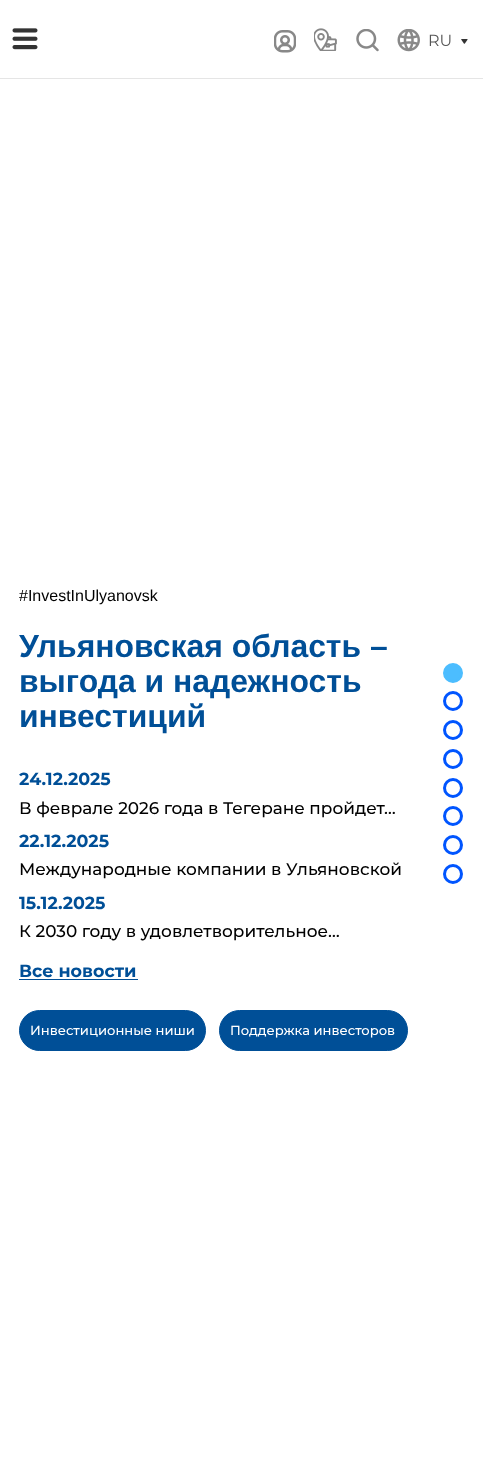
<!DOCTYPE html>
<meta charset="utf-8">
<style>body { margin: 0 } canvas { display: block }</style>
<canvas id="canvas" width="483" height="1480"></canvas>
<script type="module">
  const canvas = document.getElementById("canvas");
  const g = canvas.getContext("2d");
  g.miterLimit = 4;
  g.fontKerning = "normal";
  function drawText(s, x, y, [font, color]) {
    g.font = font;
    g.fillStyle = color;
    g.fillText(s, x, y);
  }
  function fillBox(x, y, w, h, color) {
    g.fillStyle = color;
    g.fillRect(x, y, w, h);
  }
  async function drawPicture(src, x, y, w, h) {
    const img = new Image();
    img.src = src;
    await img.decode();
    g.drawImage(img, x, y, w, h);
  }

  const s1 = ["16px Montserrat", "#555555"];
  const s2 = ["16px Liberation Sans", "#000000"];
  const s3 = ["bold 31.9px Liberation Sans", "#004F97"];
  const s4 = ["bold 17.5px Montserrat", "#004F97"];
  const s5 = ["500 16.9px Montserrat", "#000000"];
  const s6 = ["500 13.1px Montserrat", "#FFFFFF"];

  fillBox(0, 0, 483, 1480, "#FFFFFF");
  g.fillStyle = "#E5E5E5";
  g.beginPath();
  g.moveTo(0, 78);
  g.lineTo(0, 79);
  g.lineTo(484, 79);
  g.lineTo(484, 1);
  g.lineTo(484, 78);
  g.closePath();
  g.fill();
  await drawPicture("pic1.png", 12, 28, 26, 22);
  await drawPicture("pic2.png", 274, 30, 22, 23);
  await drawPicture("pic3.png", 314, 28, 23, 23);
  await drawPicture("pic4.png", 356, 29, 23, 23);
  await drawPicture("pic5.png", 397, 29, 23, 23);
  drawText("RU", 428, 46, s1);
  await drawPicture("pic6.png", 461, 39, 7, 5);
  drawText("#InvestInUlyanovsk", 19, 601, s2);
  drawText("Ульяновская область –", 19, 657, s3);
  drawText("выгода и надежность", 19, 692, s3);
  drawText("инвестиций", 19, 727, s3);
  drawText("24.12.2025", 19, 785, s4);
  drawText("В феврале 2026 года в Тегеране пройдет…", 19, 814, s5);
  drawText("22.12.2025", 19, 847, s4);
  drawText("Международные компании в Ульяновской", 19, 875, s5);
  drawText("15.12.2025", 19, 909, s4);
  drawText("К 2030 году в удовлетворительное…", 19, 937, s5);
  drawText("Все новости", 19, 977, s4);
  fillBox(19, 979, 119, 1, "#004F97");
  g.beginPath();
  g.roundRect(19.5, 1010.5, 186, 40, 20);
  g.fill();
  g.strokeStyle = "#004F97";
  g.stroke();
  drawText("Инвестиционные ниши", 30, 1035, s6);
  g.fillStyle = "#004F97";
  g.beginPath();
  g.roundRect(219.5, 1010.5, 188, 40, 20);
  g.fill();
  g.stroke();
  drawText("Поддержка инвесторов", 230, 1035, s6);
  g.fillStyle = "#4CBDFF";
  g.beginPath();
  g.arc(453, 673, 8.5, 0, Math.PI * 2);
  g.fill();
  g.strokeStyle = "#4CBDFF";
  g.lineWidth = 3;
  g.stroke();
  g.beginPath();
  g.arc(453, 701, 8.5, 0, Math.PI * 2);
  g.strokeStyle = "#0055FF";
  g.stroke();
  g.beginPath();
  g.arc(453, 730, 8.5, 0, Math.PI * 2);
  g.stroke();
  g.beginPath();
  g.arc(453, 759, 8.5, 0, Math.PI * 2);
  g.stroke();
  g.beginPath();
  g.arc(453, 788, 8.5, 0, Math.PI * 2);
  g.stroke();
  g.beginPath();
  g.arc(453, 816, 8.5, 0, Math.PI * 2);
  g.stroke();
  g.beginPath();
  g.arc(453, 845, 8.5, 0, Math.PI * 2);
  g.stroke();
  g.beginPath();
  g.arc(453, 874, 8.5, 0, Math.PI * 2);
  g.stroke();
</script>
